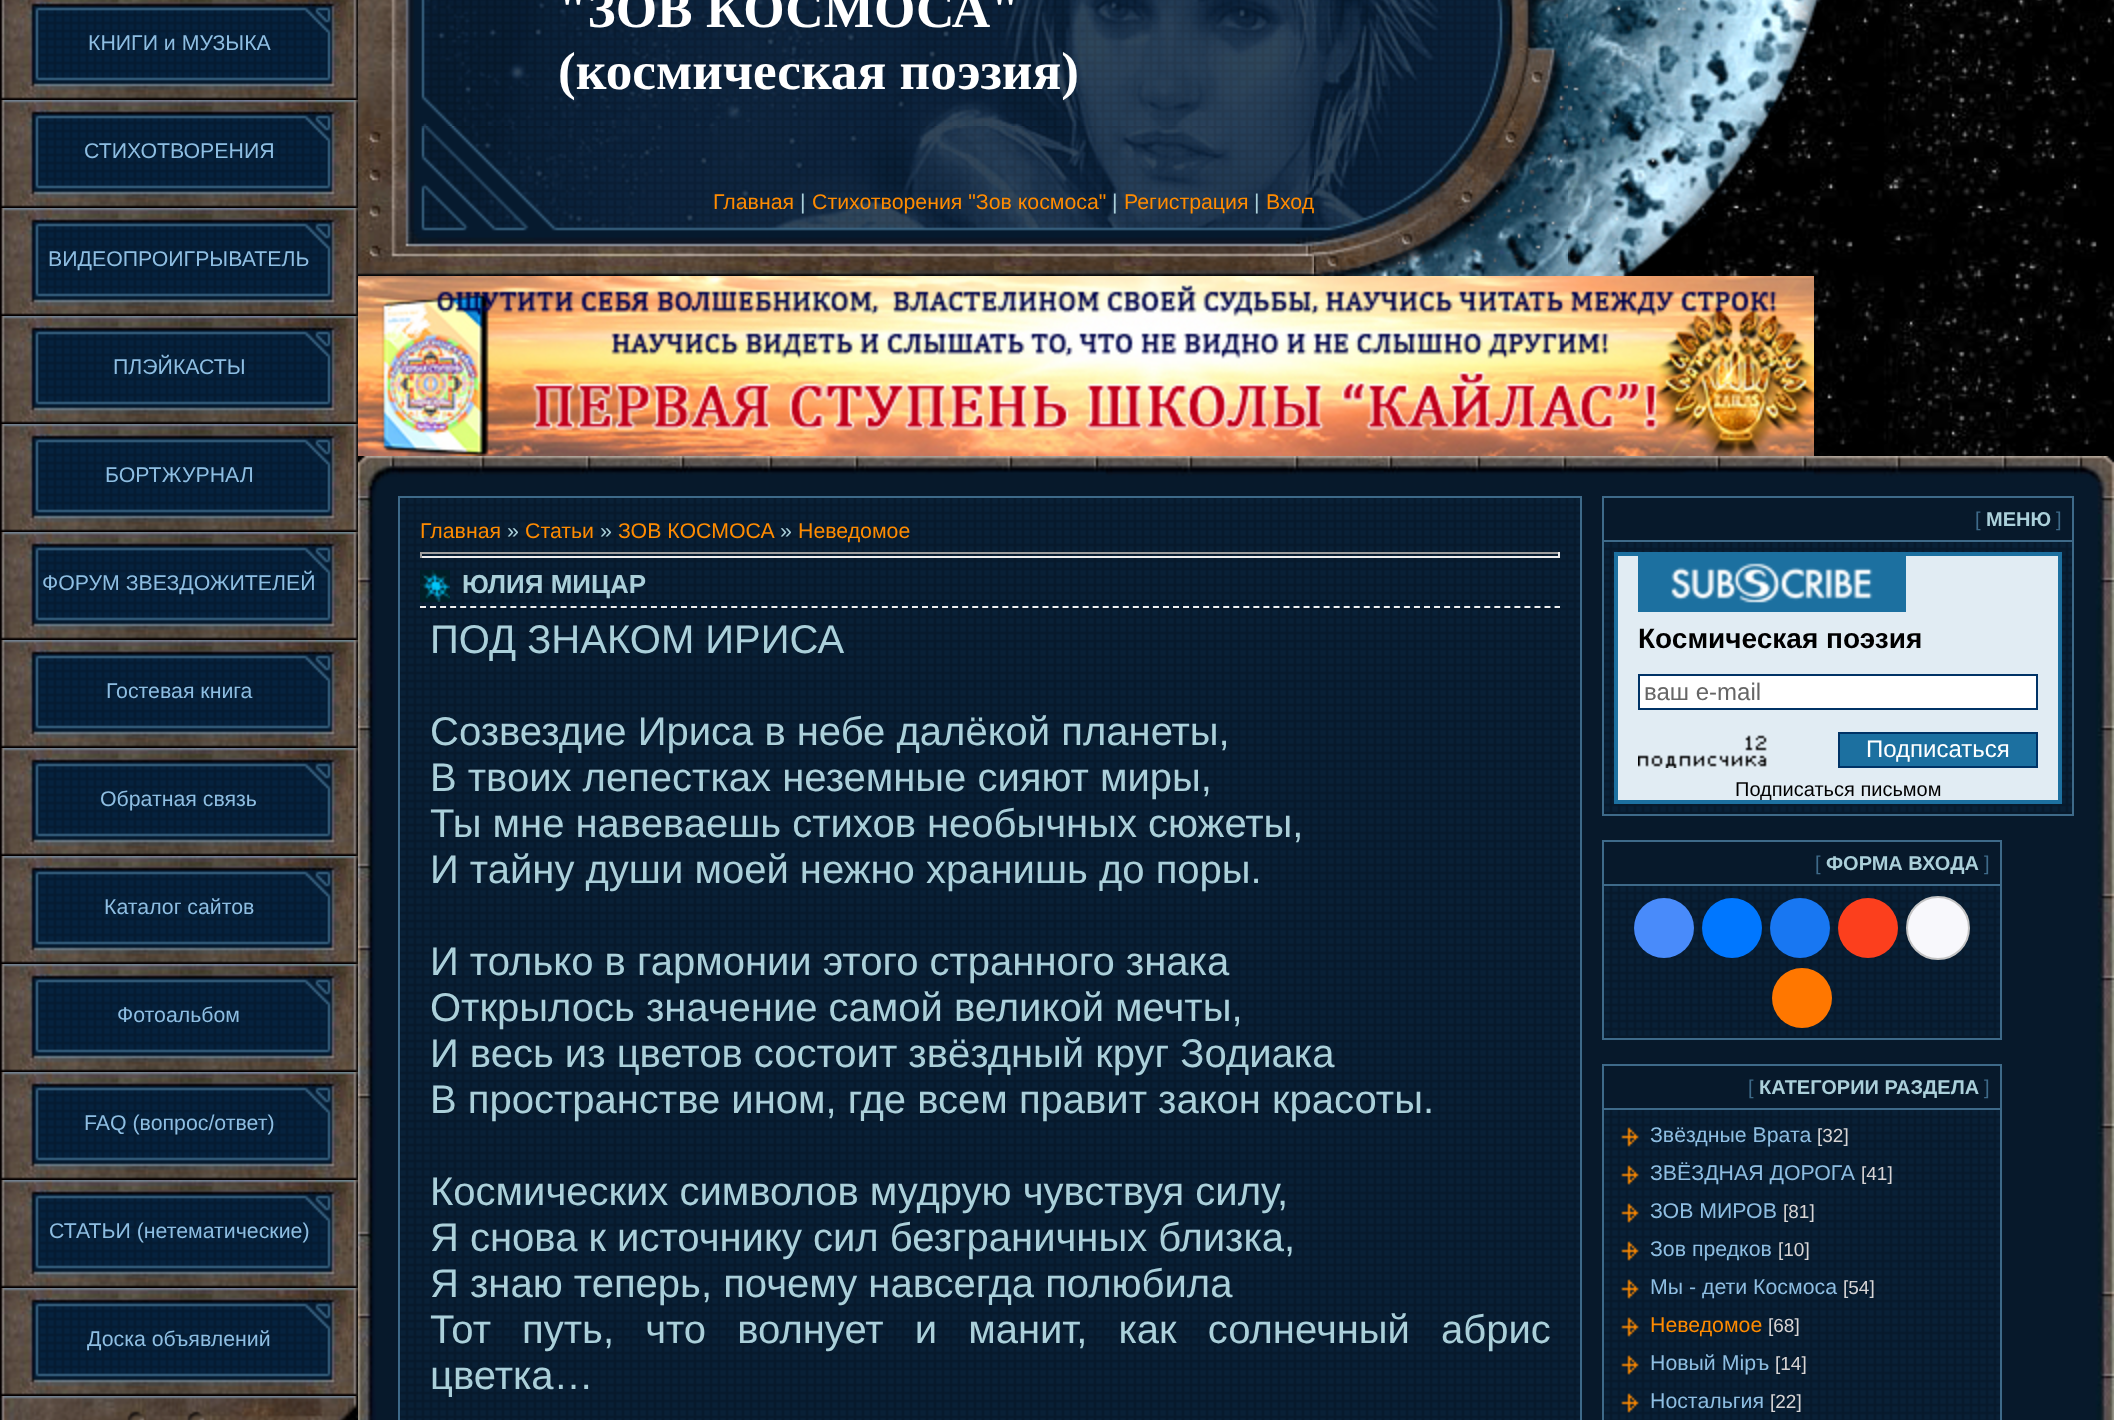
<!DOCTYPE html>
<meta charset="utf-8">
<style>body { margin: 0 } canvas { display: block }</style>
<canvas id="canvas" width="2114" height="1420"></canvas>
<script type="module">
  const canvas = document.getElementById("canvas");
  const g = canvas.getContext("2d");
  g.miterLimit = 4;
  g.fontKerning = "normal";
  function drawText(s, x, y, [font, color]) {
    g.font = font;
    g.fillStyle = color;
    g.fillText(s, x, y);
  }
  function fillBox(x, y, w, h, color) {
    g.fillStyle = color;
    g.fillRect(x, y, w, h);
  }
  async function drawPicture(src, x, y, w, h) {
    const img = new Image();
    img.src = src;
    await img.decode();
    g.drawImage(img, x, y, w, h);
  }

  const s1 = ["21.3px Liberation Sans", "#8EBEE2"];
  const s2 = ["bold 53.25px Liberation Serif", "#FFFFFF"];
  const s3 = ["21.3px Liberation Sans", "#FF8B00"];
  const s4 = ["21.3px Liberation Sans", "#ABD0DA"];
  const s5 = ["bold 26px Liberation Sans", "#ABD0DA"];
  const s6 = ["40px Liberation Sans", "#ABD0DA"];
  const s7 = ["20px Liberation Sans", "#3E6A89"];
  const s8 = ["bold 20px Liberation Sans", "#ABD0DA"];
  const s9 = ["bold 28px Liberation Sans", "#000000"];
  const s10 = ["24px Liberation Sans", "#666666"];
  const s11 = ["24px Liberation Sans", "#FFFFFF"];
  const s12 = ["20px Liberation Sans", "#000000"];
  const s13 = ["19px Liberation Sans", "#D8D5D5"];

  fillBox(0, 0, 2114, 1420, "#FFFFFF");
  await drawPicture("pic1.png", 345, 0, 1769, 1420);
  await drawPicture("pic2.png", 0, 0, 358, 100);
  drawText("КНИГИ и МУЗЫКА", 88, 50, s1);
  await drawPicture("pic3.png", 0, 100, 358, 108);
  drawText("СТИХОТВОРЕНИЯ", 84, 158, s1);
  await drawPicture("pic3.png", 0, 208, 358, 108);
  drawText("ВИДЕОПРОИГРЫВАТЕЛЬ", 48, 266, s1);
  await drawPicture("pic3.png", 0, 316, 358, 108);
  drawText("ПЛЭЙКАСТЫ", 113, 374, s1);
  await drawPicture("pic3.png", 0, 424, 358, 108);
  drawText("БОРТЖУРНАЛ", 105, 482, s1);
  await drawPicture("pic3.png", 0, 532, 358, 108);
  drawText("ФОРУМ ЗВЕЗДОЖИТЕЛЕЙ", 42, 590, s1);
  await drawPicture("pic3.png", 0, 640, 358, 108);
  drawText("Гостевая книга", 106, 698, s1);
  await drawPicture("pic3.png", 0, 748, 358, 108);
  drawText("Обратная связь", 100, 806, s1);
  await drawPicture("pic3.png", 0, 856, 358, 108);
  drawText("Каталог сайтов", 104, 914, s1);
  await drawPicture("pic3.png", 0, 964, 358, 108);
  drawText("Фотоальбом", 117, 1022, s1);
  await drawPicture("pic3.png", 0, 1072, 358, 108);
  drawText("FAQ (вопрос/ответ)", 84, 1130, s1);
  await drawPicture("pic3.png", 0, 1180, 358, 108);
  drawText("СТАТЬИ (нетематические)", 49, 1238, s1);
  await drawPicture("pic3.png", 0, 1288, 358, 108);
  drawText("Доска объявлений", 87, 1346, s1);
  await drawPicture("pic4.png", 0, 1396, 358, 24);
  await drawPicture("pic5.png", 358, 0, 956, 126);
  drawText("\"ЗОВ КОСМОСА\"", 558, 27, s2);
  drawText("(космическая поэзия)", 558, 89, s2);
  await drawPicture("pic6.png", 358, 126, 956, 150);
  drawText("Главная", 713, 209, s3);
  drawText("|", 800, 209, s4);
  drawText("Стихотворения \"Зов космоса\"", 812, 209, s3);
  drawText("|", 1112, 209, s4);
  drawText("Регистрация", 1124, 209, s3);
  drawText("|", 1254, 209, s4);
  drawText("Вход", 1266, 209, s3);
  await drawPicture("pic7.png", 1314, 0, 254, 276);
  await drawPicture("pic8.png", 1568, 0, 255, 276);
  await drawPicture("pic9.png", 358, 276, 1456, 180);
  await drawPicture("pic10.png", 358, 456, 40, 40);
  await drawPicture("pic11.png", 398, 456, 1676, 40);
  await drawPicture("pic12.png", 2074, 456, 40, 40);
  await drawPicture("pic13.png", 358, 496, 40, 924);
  fillBox(1582, 496, 492, 924, "#07192B");
  await drawPicture("pic14.png", 400, 498, 1180, 922);
  g.strokeStyle = "#3E6A89";
  g.lineWidth = 2;
  g.strokeRect(399, 497, 1182, 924);
  drawText("Главная", 420, 538, s3);
  drawText("»", 507, 538, s4);
  drawText("Статьи", 525, 538, s3);
  drawText("»", 600, 538, s4);
  drawText("ЗОВ КОСМОСА", 618, 538, s3);
  drawText("»", 780, 538, s4);
  drawText("Неведомое", 798, 538, s3);
  fillBox(420, 552, 1140, 2, "#9F9F9F");
  fillBox(1558, 552, 2, 6, "#EEEEEE");
  fillBox(420, 556, 1140, 2, "#EEEEEE");
  fillBox(420, 552, 2, 6, "#9F9F9F");
  await drawPicture("pic15.png", 420, 570, 30, 32);
  drawText("ЮЛИЯ МИЦАР", 462, 593, s5);
  g.beginPath();
  g.moveTo(420, 607);
  g.lineTo(1560, 607);
  g.strokeStyle = "#EFEFEF";
  g.setLineDash([6, 4.04]);
  g.stroke();
  drawText("ПОД ЗНАКОМ ИРИСА", 430, 653, s6);
  drawText("Созвездие Ириса в небе далёкой планеты,", 430, 745, s6);
  drawText("В твоих лепестках неземные сияют миры,", 430, 791, s6);
  drawText("Ты мне навеваешь стихов необычных сюжеты,", 430, 837, s6);
  drawText("И тайну души моей нежно хранишь до поры.", 430, 883, s6);
  drawText("И только в гармонии этого странного знака", 430, 975, s6);
  drawText("Открылось значение самой великой мечты,", 430, 1021, s6);
  drawText("И весь из цветов состоит звёздный круг Зодиака", 430, 1067, s6);
  drawText("В пространстве ином, где всем правит закон красоты.", 430, 1113, s6);
  drawText("Космических символов мудрую чувствуя силу,", 430, 1205, s6);
  drawText("Я снова к источнику сил безграничных близка,", 430, 1251, s6);
  drawText("Я знаю теперь, почему навсегда полюбила", 430, 1297, s6);
  g.wordSpacing = "20px";
  drawText("Тот путь, что волнует и манит, как солнечный абрис", 430, 1343, s6);
  g.wordSpacing = "0px";
  drawText("цветка…", 430, 1389, s6);
  g.strokeStyle = "#3E6A89";
  g.setLineDash([]);
  g.strokeRect(1603, 497, 470, 318);
  fillBox(1604, 540, 468, 2, "#3E6A89");
  drawText("[", 1975, 526, s7);
  drawText("МЕНЮ", 1986, 526, s8);
  drawText("]", 2056, 526, s7);
  await drawPicture("pic16.png", 1604, 542, 468, 270);
  g.fillStyle = "#E1ECF3";
  g.beginPath();
  g.rect(1616, 554, 444, 248);
  g.fill();
  g.strokeStyle = "#1C70A0";
  g.lineWidth = 4;
  g.stroke();
  await drawPicture("pic17.png", 1638, 556, 268, 56);
  drawText("Космическая поэзия", 1638, 648, s9);
  g.fillStyle = "#FFFFFF";
  g.beginPath();
  g.rect(1639, 675, 398, 34);
  g.fill();
  g.strokeStyle = "#003366";
  g.lineWidth = 2;
  g.stroke();
  drawText("ваш e-mail", 1644, 700, s10);
  await drawPicture("pic18.png", 1638, 735, 129, 33);
  g.fillStyle = "#1C70A0";
  g.beginPath();
  g.rect(1839, 733, 198, 34);
  g.fill();
  g.stroke();
  drawText("Подписаться", 1866, 757, s11);
  drawText("Подписаться письмом", 1735, 796, s12);
  g.strokeStyle = "#3E6A89";
  g.strokeRect(1603, 841, 398, 198);
  fillBox(1604, 884, 396, 2, "#3E6A89");
  drawText("[", 1815, 870, s7);
  drawText("ФОРМА ВХОДА", 1826, 870, s8);
  drawText("]", 1984, 870, s7);
  await drawPicture("pic19.png", 1604, 886, 396, 150);
  g.fillStyle = "#498BFA";
  g.beginPath();
  g.arc(1664, 928, 30, 0, Math.PI * 2);
  g.fill();
  g.fillStyle = "#0077FF";
  g.beginPath();
  g.arc(1732, 928, 30, 0, Math.PI * 2);
  g.fill();
  g.fillStyle = "#1877F2";
  g.beginPath();
  g.arc(1800, 928, 30, 0, Math.PI * 2);
  g.fill();
  g.fillStyle = "#FC3F1D";
  g.beginPath();
  g.arc(1868, 928, 30, 0, Math.PI * 2);
  g.fill();
  g.fillStyle = "#F8F8FC";
  g.beginPath();
  g.arc(1938, 928, 31, 0, Math.PI * 2);
  g.fill();
  g.strokeStyle = "#C4C4C4";
  g.stroke();
  g.fillStyle = "#FF7700";
  g.beginPath();
  g.arc(1802, 998, 30, 0, Math.PI * 2);
  g.fill();
  g.strokeStyle = "#3E6A89";
  g.strokeRect(1603, 1065, 398, 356);
  fillBox(1604, 1108, 396, 2, "#3E6A89");
  drawText("[", 1748, 1094, s7);
  drawText("КАТЕГОРИИ РАЗДЕЛА", 1759, 1094, s8);
  drawText("]", 1984, 1094, s7);
  await drawPicture("pic20.png", 1604, 1110, 396, 310);
  await drawPicture("pic21.png", 1621, 1127, 18, 20);
  drawText("Звёздные Врата", 1650, 1142, s1);
  drawText("[32]", 1817, 1142, s13);
  await drawPicture("pic22.png", 1621, 1165, 18, 20);
  drawText("ЗВЁЗДНАЯ ДОРОГА", 1650, 1180, s1);
  drawText("[41]", 1861, 1180, s13);
  await drawPicture("pic23.png", 1621, 1203, 18, 20);
  drawText("ЗОВ МИРОВ", 1650, 1218, s1);
  drawText("[81]", 1783, 1218, s13);
  await drawPicture("pic24.png", 1621, 1241, 18, 20);
  drawText("Зов предков", 1650, 1256, s1);
  drawText("[10]", 1778, 1256, s13);
  await drawPicture("pic21.png", 1621, 1279, 18, 20);
  drawText("Мы - дети Космоса", 1650, 1294, s1);
  drawText("[54]", 1843, 1294, s13);
  await drawPicture("pic22.png", 1621, 1317, 18, 20);
  drawText("Неведомое", 1650, 1332, s3);
  drawText("[68]", 1768, 1332, s13);
  await drawPicture("pic23.png", 1621, 1355, 18, 20);
  drawText("Новый Мiръ", 1650, 1370, s1);
  drawText("[14]", 1775, 1370, s13);
  await drawPicture("pic24.png", 1621, 1393, 18, 20);
  drawText("Ностальгия", 1650, 1408, s1);
  drawText("[22]", 1770, 1408, s13);
  await drawPicture("pic25.png", 2074, 496, 40, 924);
</script>
